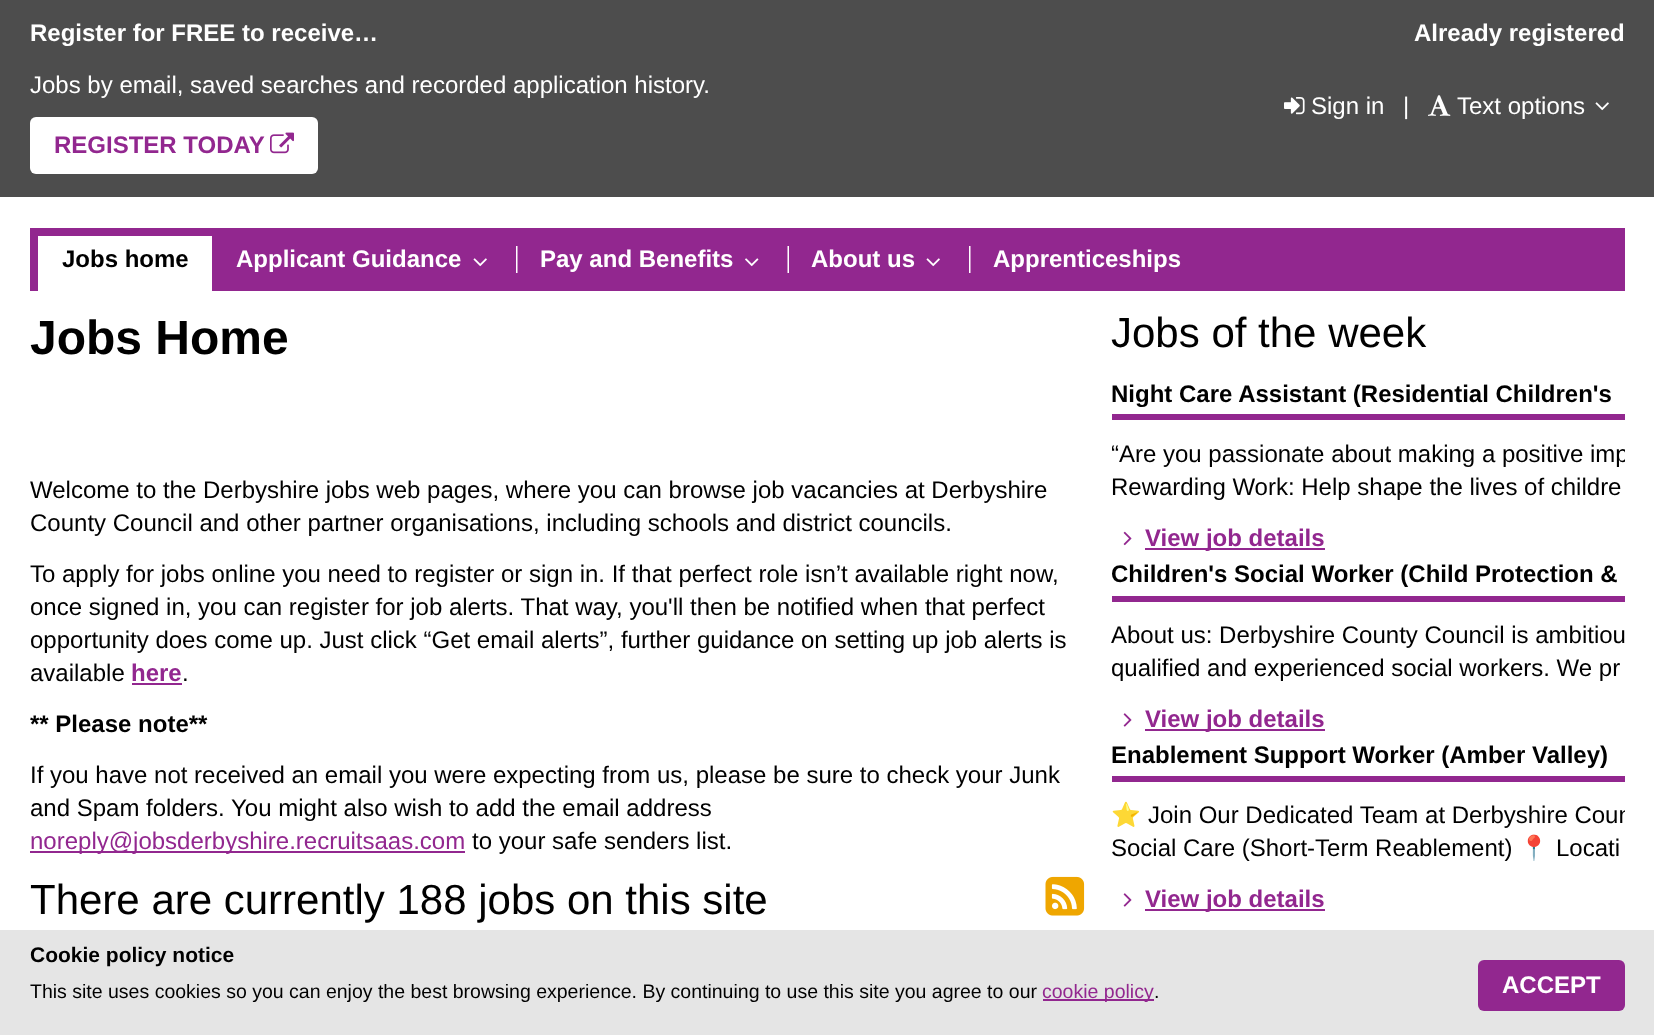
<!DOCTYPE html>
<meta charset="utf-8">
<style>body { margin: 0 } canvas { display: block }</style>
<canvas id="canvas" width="1654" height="1035"></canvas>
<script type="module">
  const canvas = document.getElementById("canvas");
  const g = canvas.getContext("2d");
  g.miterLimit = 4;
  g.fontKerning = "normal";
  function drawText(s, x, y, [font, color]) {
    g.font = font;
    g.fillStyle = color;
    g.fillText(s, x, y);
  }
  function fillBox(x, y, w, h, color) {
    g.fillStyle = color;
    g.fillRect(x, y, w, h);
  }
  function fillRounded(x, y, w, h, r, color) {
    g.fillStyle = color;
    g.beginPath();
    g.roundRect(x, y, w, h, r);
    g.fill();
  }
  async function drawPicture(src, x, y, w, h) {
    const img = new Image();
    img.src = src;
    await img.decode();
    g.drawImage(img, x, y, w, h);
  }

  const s1 = ["bold 24px Liberation Sans", "#FFFFFF"];
  const s2 = ["24px Liberation Sans", "#FFFFFF"];
  const s3 = ["bold 24px Liberation Sans", "#92278F"];
  const s4 = ["bold 24px Liberation Sans", "#000000"];
  const s5 = ["bold 48px Liberation Sans", "#000000"];
  const s6 = ["24px Liberation Sans", "#000000"];
  const s7 = ["24px Liberation Sans", "#92278F"];
  const s8 = ["42px Liberation Sans", "#000000"];
  const s9 = ["24px Noto Color Emoji", "#000000"];
  const s10 = ["bold 21px Liberation Sans", "#000000"];
  const s11 = ["19.5px Liberation Sans", "#000000"];
  const s12 = ["19.5px Liberation Sans", "#92278F"];

  fillBox(0, 0, 1654, 1035, "#FFFFFF");
  fillBox(0, 0, 1654, 197, "#4D4D4D");
  drawText("Register for FREE to receive…", 30, 41, s1);
  drawText("Jobs by email, saved searches and recorded application history.", 30, 93, s2);
  fillRounded(30, 117, 288, 57, 6, "#FFFFFF");
  drawText("REGISTER TODAY", 54, 153, s3);
  await drawPicture("pic1.png", 270, 132, 24, 22);
  drawText("Already registered", 1414, 41, s1);
  await drawPicture("pic2.png", 1284, 97, 21, 18);
  drawText("Sign in", 1311, 114, s2);
  drawText("|", 1403, 114, s2);
  await drawPicture("pic3.png", 1428, 95, 23, 21);
  drawText("Text options", 1457, 114, s2);
  await drawPicture("pic4.png", 1595, 102, 14, 9);
  fillBox(30, 228, 1595, 63, "#92278F");
  fillBox(38, 236, 174, 55, "#FFFFFF");
  drawText("Jobs home", 62, 267, s4);
  drawText("Applicant Guidance", 236, 267, s1);
  await drawPicture("pic5.png", 473, 258, 14, 9);
  await drawPicture("pic6.png", 516, 246, 2, 27);
  drawText("Pay and Benefits", 540, 267, s1);
  await drawPicture("pic7.png", 745, 258, 14, 9);
  await drawPicture("pic8.png", 787, 246, 2, 27);
  drawText("About us", 811, 267, s1);
  await drawPicture("pic5.png", 926, 258, 14, 9);
  await drawPicture("pic6.png", 969, 246, 2, 27);
  drawText("Apprenticeships", 993, 267, s1);
  drawText("Jobs Home", 30, 354, s5);
  drawText("Welcome to the Derbyshire jobs web pages, where you can browse job vacancies at Derbyshire", 30, 498, s6);
  drawText("County Council and other partner organisations, including schools and district councils.", 30, 531, s6);
  drawText("To apply for jobs online you need to register or sign in. If that perfect role isn’t available right now,", 30, 582, s6);
  drawText("once signed in, you can register for job alerts. That way, you'll then be notified when that perfect", 30, 615, s6);
  drawText("opportunity does come up. Just click “Get email alerts”, further guidance on setting up job alerts is", 30, 648, s6);
  drawText("available", 30, 681, s6);
  drawText("here", 131, 681, s3);
  fillBox(132, 683, 50, 2, "#92278F");
  drawText(".", 182, 681, s6);
  drawText("** Please note**", 30, 732, s4);
  drawText("If you have not received an email you were expecting from us, please be sure to check your Junk", 30, 783, s6);
  drawText("and Spam folders. You might also wish to add the email address", 30, 816, s6);
  fillBox(30, 851, 435, 2, "#92278F");
  drawText("noreply@jobsderbyshire.recruitsaas.com", 30, 849, s7);
  drawText("to your safe senders list.", 472, 849, s6);
  drawText("There are currently 188 jobs on this site", 30, 914, s8);
  await drawPicture("pic9.png", 1045, 876, 40, 40);
  drawText("Jobs of the week", 1111, 347, s8);
  fillBox(1112, 414, 513, 6, "#92278F");
  drawText("Night Care Assistant (Residential Children's", 1111, 402, s4);
  g.save();
  g.beginPath();
  g.rect(1112, 381, 513, 554);
  g.clip();
  drawText("“Are you passionate about making a positive imp", 1111, 462, s6);
  g.restore();
  drawText("Rewarding Work: Help shape the lives of childre", 1111, 495, s6);
  await drawPicture("pic10.png", 1123, 531, 9, 15);
  fillBox(1145, 548, 180, 2, "#92278F");
  drawText("View job details", 1145, 546, s3);
  fillBox(1112, 596, 513, 6, "#92278F");
  drawText("Children's Social Worker (Child Protection &", 1111, 582, s4);
  drawText("About us: Derbyshire County Council is ambitiou", 1111, 643, s6);
  drawText("qualified and experienced social workers. We pr", 1111, 676, s6);
  await drawPicture("pic11.png", 1123, 713, 9, 14);
  fillBox(1145, 729, 180, 2, "#92278F");
  drawText("View job details", 1145, 727, s3);
  fillBox(1112, 776, 513, 6, "#92278F");
  drawText("Enablement Support Worker (Amber Valley)", 1111, 763, s4);
  g.save();
  g.beginPath();
  g.rect(1112, 381, 513, 554);
  g.clip();
  drawText("⭐", 1111, 823, s9);
  drawText("Join Our Dedicated Team at Derbyshire Coun", 1148, 823, s6);
  g.restore();
  drawText("Social Care (Short-Term Reablement)", 1111, 856, s6);
  drawText("📍", 1519, 856, s9);
  drawText("Locati", 1556, 856, s6);
  await drawPicture("pic11.png", 1123, 893, 9, 14);
  fillBox(1145, 909, 180, 2, "#92278F");
  drawText("View job details", 1145, 907, s3);
  fillBox(0, 930, 1654, 105, "#E5E5E5");
  drawText("Cookie policy notice", 30, 962, s10);
  drawText("This site uses cookies so you can enjoy the best browsing experience. By continuing to use this site you agree to our", 30, 998, s11);
  fillBox(1043, 999, 111, 2, "#92278F");
  drawText("cookie policy", 1042, 998, s12);
  drawText(".", 1154, 998, s11);
  fillRounded(1478, 960, 147, 51, 6, "#92278F");
  drawText("ACCEPT", 1502, 993, s1);
</script>
